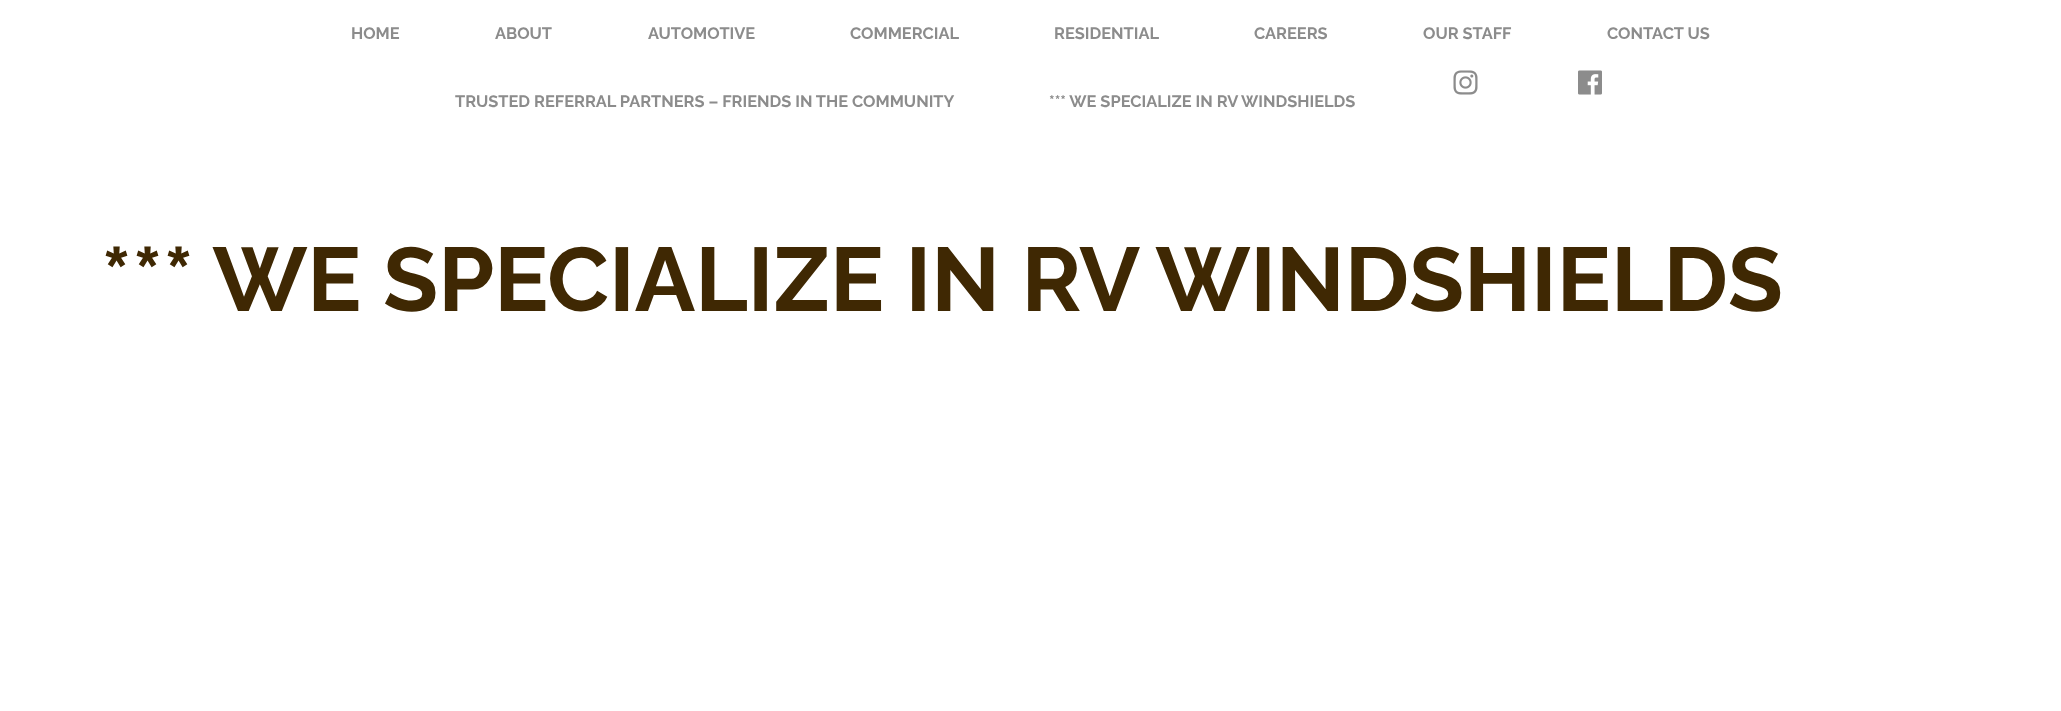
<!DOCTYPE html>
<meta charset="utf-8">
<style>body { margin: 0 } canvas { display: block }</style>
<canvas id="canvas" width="2061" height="711"></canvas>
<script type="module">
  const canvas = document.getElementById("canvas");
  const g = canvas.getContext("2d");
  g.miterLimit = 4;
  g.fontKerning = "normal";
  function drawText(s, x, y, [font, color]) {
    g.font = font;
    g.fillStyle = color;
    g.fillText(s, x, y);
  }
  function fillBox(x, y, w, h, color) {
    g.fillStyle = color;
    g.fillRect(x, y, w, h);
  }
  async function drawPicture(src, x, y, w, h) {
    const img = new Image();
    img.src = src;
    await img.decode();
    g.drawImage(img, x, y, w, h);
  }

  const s1 = ["bold 16.4px Raleway", "#8C8C8C"];
  const s2 = ["bold 90px Raleway", "#3F2803"];

  fillBox(0, 0, 2061, 711, "#FFFFFF");
  drawText("HOME", 351, 39, s1);
  drawText("ABOUT", 495, 39, s1);
  drawText("AUTOMOTIVE", 648, 39, s1);
  drawText("COMMERCIAL", 850, 39, s1);
  drawText("RESIDENTIAL", 1054, 39, s1);
  drawText("CAREERS", 1254, 39, s1);
  drawText("OUR STAFF", 1423, 39, s1);
  drawText("CONTACT US", 1607, 39, s1);
  await drawPicture("pic1.png", 1453, 70, 25, 25);
  await drawPicture("pic2.png", 1578, 70, 24, 25);
  drawText("TRUSTED REFERRAL PARTNERS – FRIENDS IN THE COMMUNITY", 455, 107, s1);
  drawText("*** WE SPECIALIZE IN RV WINDSHIELDS", 1049, 107, s1);
  drawText("*** WE SPECIALIZE IN RV WINDSHIELDS", 101, 311, s2);
</script>
